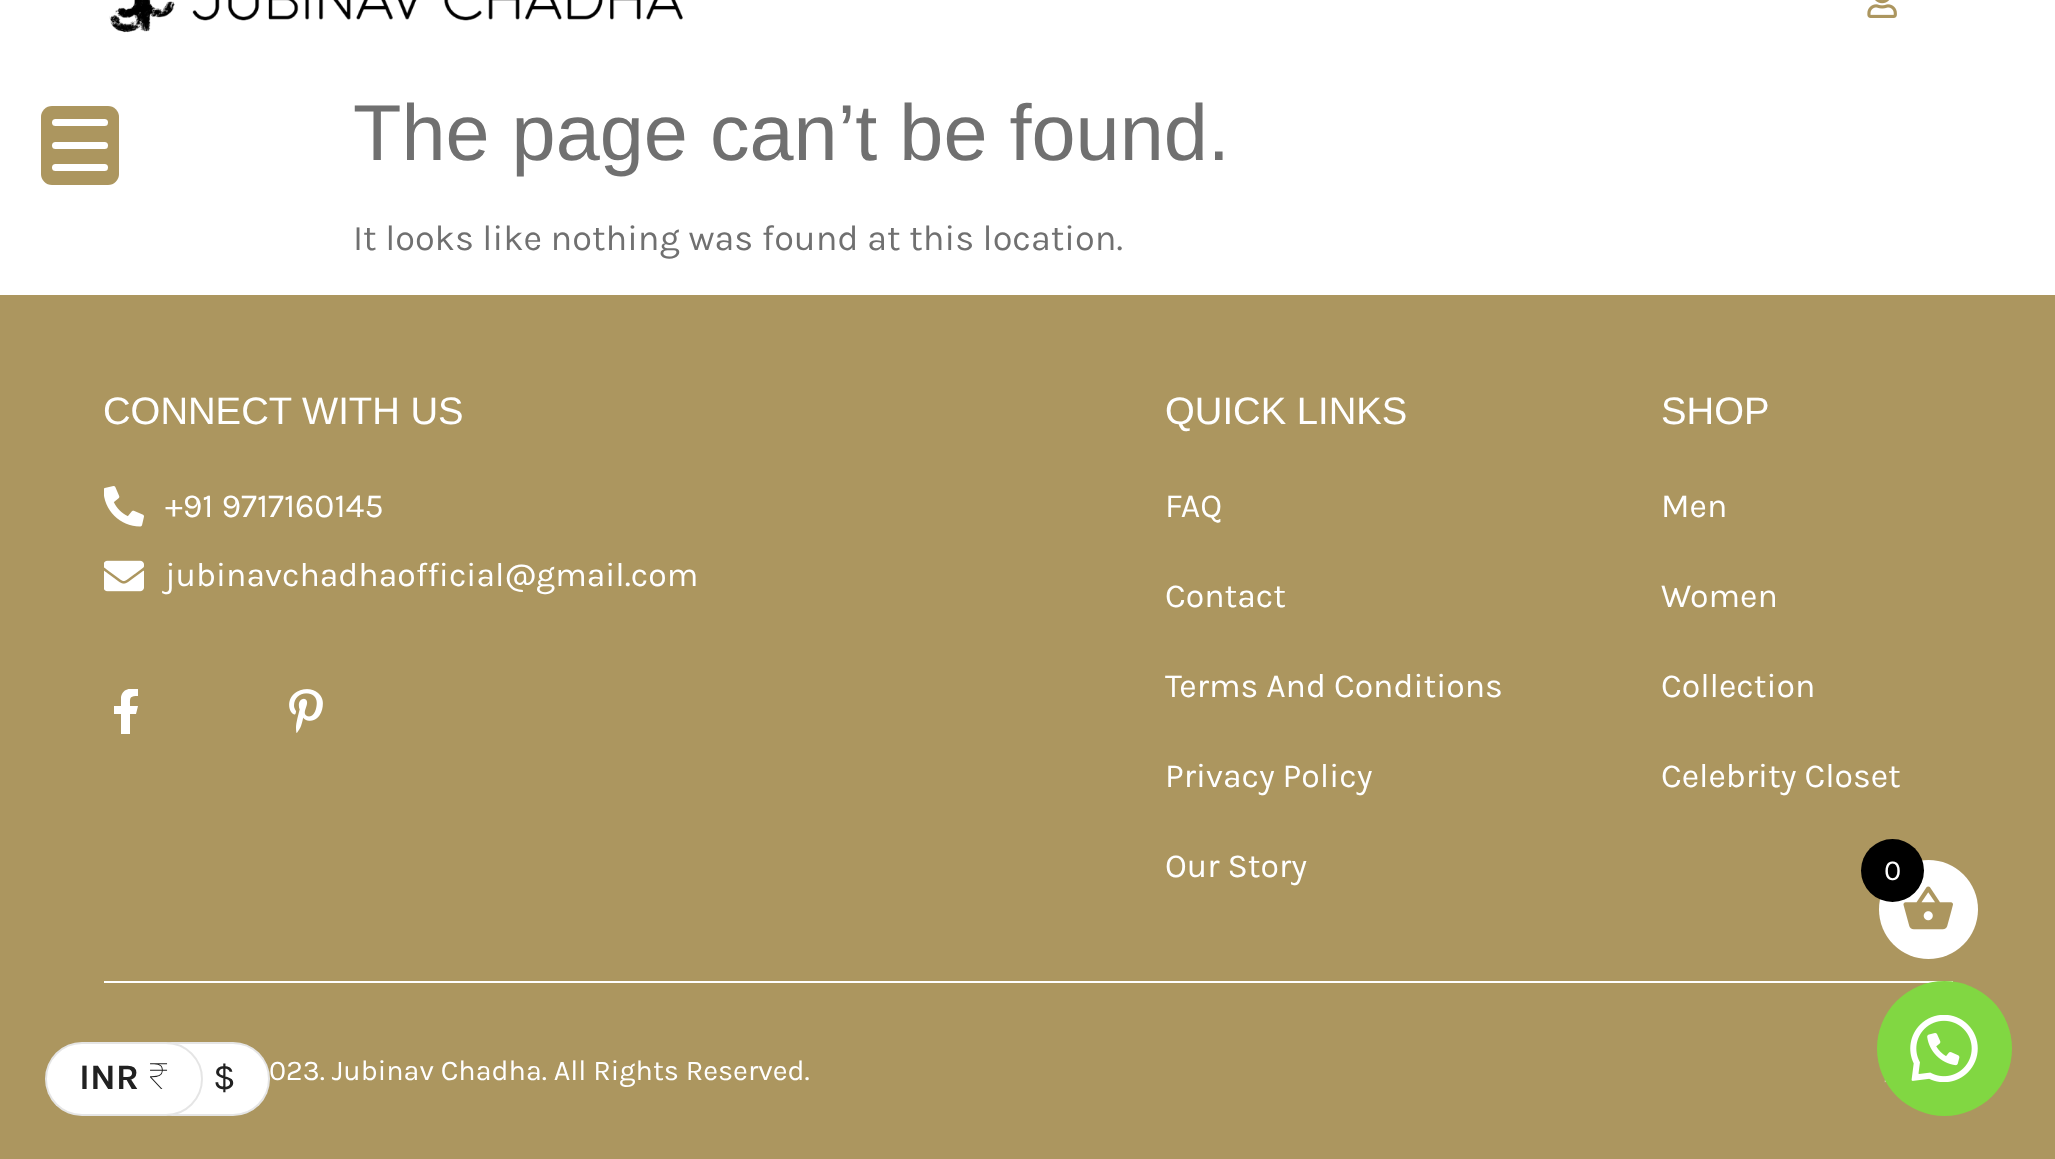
<!DOCTYPE html>
<meta charset="utf-8">
<style>body { margin: 0 } canvas { display: block }</style>
<canvas id="canvas" width="2055" height="1159"></canvas>
<script type="module">
  const canvas = document.getElementById("canvas");
  const g = canvas.getContext("2d");
  g.miterLimit = 4;
  g.fontKerning = "normal";
  function drawText(s, x, y, [font, color]) {
    g.font = font;
    g.fillStyle = color;
    g.fillText(s, x, y);
  }
  function fillBox(x, y, w, h, color) {
    g.fillStyle = color;
    g.fillRect(x, y, w, h);
  }
  function fillRounded(x, y, w, h, r, color) {
    g.fillStyle = color;
    g.beginPath();
    g.roundRect(x, y, w, h, r);
    g.fill();
  }
  async function drawPicture(src, x, y, w, h) {
    const img = new Image();
    img.src = src;
    await img.decode();
    g.drawImage(img, x, y, w, h);
  }

  const s1 = ["79.25px Liberation Sans", "#707070"];
  const s2 = ["36px Karla", "#707070"];
  const s3 = ["38.25px Liberation Sans", "#FFFFFF"];
  const s4 = ["33.75px Karla", "#FFFFFF"];
  const s5 = ["28.75px Karla", "#FFFFFF"];
  const s6 = ["29px Karla", "#FFFFFF"];
  const s7 = ["bold 36px Karla", "#212121"];
  const s8 = ["100 36px Noto Sans", "#212121"];
  const s9 = ["36px Karla", "#212121"];

  fillBox(0, 0, 2055, 1159, "#FFFFFF");
  fillRounded(41, 106, 78, 79, 11, "#AC965F");
  fillRounded(52, 142, 56, 7, 3.5, "#FFFFFF");
  fillRounded(52, 119, 56, 7, 3.5, "#FFFFFF");
  fillRounded(52, 164, 56, 7, 3.5, "#FFFFFF");
  drawText("The page can’t be found.", 353, 160, s1);
  drawText("It looks like nothing was found at this location.", 353, 250, s2);
  fillBox(0, 295, 2055, 864, "#AC965F");
  drawText("CONNECT WITH US", 103, 424, s3);
  await drawPicture("pic1.png", 104, 486, 40, 41);
  drawText("+91 9717160145", 165, 517, s4);
  await drawPicture("pic2.png", 104, 560, 40, 32);
  drawText("jubinavchadhaofficial@gmail.com", 165, 586, s4);
  g.save();
  g.beginPath();
  g.rect(104, 689, 45, 45);
  g.clip();
  g.beginPath();
  g.moveTo(136, 714);
  g.lineTo(138, 706);
  g.lineTo(130, 706);
  g.bezierCurveTo(130, 698, 129, 696, 138, 696);
  g.lineTo(138, 689);
  g.bezierCurveTo(131, 688, 123, 688, 121, 697);
  g.lineTo(121, 706);
  g.lineTo(114, 706);
  g.lineTo(114, 714);
  g.lineTo(121, 714);
  g.lineTo(121, 734);
  g.lineTo(130, 734);
  g.lineTo(130, 714);
  g.closePath();
  g.fill();
  g.restore();
  await drawPicture("pic3.png", 289, 689, 34, 44);
  drawText("QUICK LINKS", 1165, 424, s3);
  drawText("FAQ", 1165, 517, s4);
  drawText("Contact", 1165, 607, s4);
  drawText("Terms And Conditions", 1165, 697, s4);
  drawText("Privacy Policy", 1165, 787, s4);
  drawText("Our Story", 1165, 877, s4);
  drawText("SHOP", 1661, 424, s3);
  drawText("Men", 1661, 517, s4);
  drawText("Women", 1661, 607, s4);
  drawText("Collection", 1661, 697, s4);
  drawText("Celebrity Closet", 1661, 787, s4);
  fillBox(104, 981, 1849, 2, "#FFFFFF");
  drawText("023. Jubinav Chadha. All Rights Reserved.", 269, 1080, s5);
  await drawPicture("pic4.png", 1884, 995, 20, 88);
  g.beginPath();
  g.arc(1928.5, 909.5, 49.5, 0, Math.PI * 2);
  g.fill();
  await drawPicture("pic5.png", 1903, 886, 50, 44);
  g.fillStyle = "#000000";
  g.beginPath();
  g.arc(1892.5, 870.5, 31.5, 0, Math.PI * 2);
  g.fill();
  drawText("0", 1884, 880, s6);
  await drawPicture("pic6.png", 109, 0, 574, 33);
  await drawPicture("pic7.png", 1867, 0, 30, 18);
  fillRounded(135, 1042, 135, 74, 37, "#FFFFFF");
  g.beginPath();
  g.roundRect(136, 1043, 133, 72, 36);
  g.strokeStyle = "rgba(0, 0, 0, 0.1)";
  g.lineWidth = 2;
  g.stroke();
  fillRounded(45, 1042, 158, 74, 37, "#FFFFFF");
  g.beginPath();
  g.roundRect(46, 1043, 156, 72, 36);
  g.stroke();
  drawText("INR", 79, 1089, s7);
  drawText("₹", 148, 1089, s8);
  drawText("$", 213, 1089, s9);
  g.fillStyle = "#81D742";
  g.beginPath();
  g.arc(1944.5, 1048.5, 67.5, 0, Math.PI * 2);
  g.fill();
  await drawPicture("pic8.png", 1910, 1015, 68, 67);
</script>
